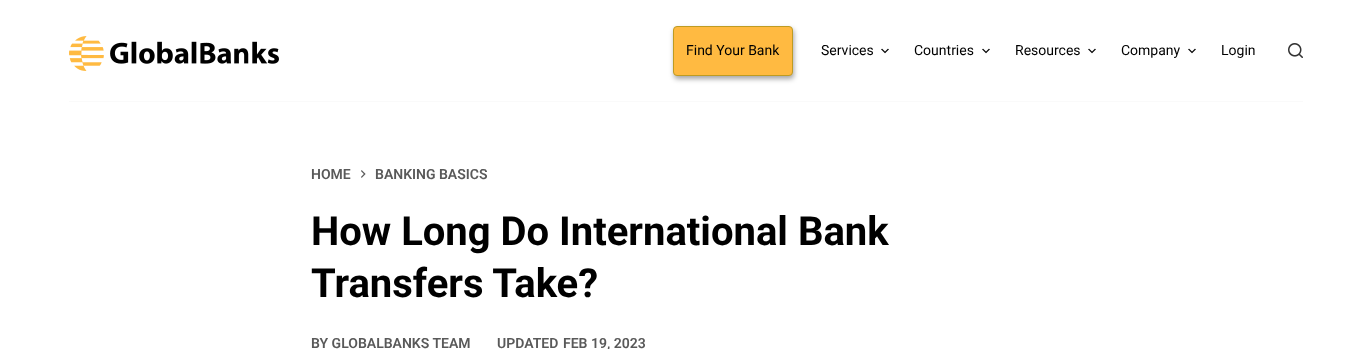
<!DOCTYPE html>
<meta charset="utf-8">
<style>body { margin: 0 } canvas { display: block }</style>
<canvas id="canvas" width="1372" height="349"></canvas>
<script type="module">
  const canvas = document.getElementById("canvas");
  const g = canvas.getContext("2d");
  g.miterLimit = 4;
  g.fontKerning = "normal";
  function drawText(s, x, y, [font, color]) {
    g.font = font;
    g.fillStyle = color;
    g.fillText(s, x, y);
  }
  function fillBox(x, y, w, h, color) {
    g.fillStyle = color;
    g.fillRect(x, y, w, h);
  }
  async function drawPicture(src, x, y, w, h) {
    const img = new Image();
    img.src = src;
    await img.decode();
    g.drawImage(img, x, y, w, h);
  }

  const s1 = ["14px Roboto", "#000000"];
  const s2 = ["600 14px Roboto", "#595959"];
  const s3 = ["bold 40px Roboto", "#000000"];

  fillBox(0, 0, 1372, 349, "#FFFFFF");
  fillBox(69, 101, 1234, 1, "#FAFAFA");
  await drawPicture("pic1.png", 69, 36, 210, 35);
  g.fillStyle = "rgba(0, 0, 0, 0.35)";
  g.filter = "blur(2.5px)";
  g.beginPath();
  g.roundRect(674, 29, 120, 50, 4);
  g.fill();
  g.filter = "none";
  g.fillStyle = "#FFBA41";
  g.beginPath();
  g.roundRect(673.5, 26.5, 119, 49, 3.5);
  g.fill();
  g.strokeStyle = "#BE9B22";
  g.stroke();
  drawText("Find Your Bank", 686, 55, s1);
  drawText("Services", 821, 55, s1);
  await drawPicture("pic2.png", 881, 48, 8, 6);
  drawText("Countries", 914, 55, s1);
  await drawPicture("pic2.png", 982, 48, 8, 6);
  drawText("Resources", 1015, 55, s1);
  await drawPicture("pic2.png", 1088, 48, 8, 6);
  drawText("Company", 1121, 55, s1);
  await drawPicture("pic2.png", 1188, 48, 8, 6);
  drawText("Login", 1221, 55, s1);
  await drawPicture("pic3.png", 1288, 43, 15, 15);
  drawText("HOME", 311, 179, s2);
  await drawPicture("pic4.png", 361, 170, 5, 8);
  drawText("BANKING BASICS", 375, 179, s2);
  drawText("How Long Do International Bank", 311, 245, s3);
  drawText("Transfers Take?", 311, 297, s3);
  drawText("BY GLOBALBANKS TEAM", 311, 348, s2);
  drawText("UPDATED", 497, 348, s2);
  drawText("FEB 19, 2023", 563, 348, s2);
</script>
